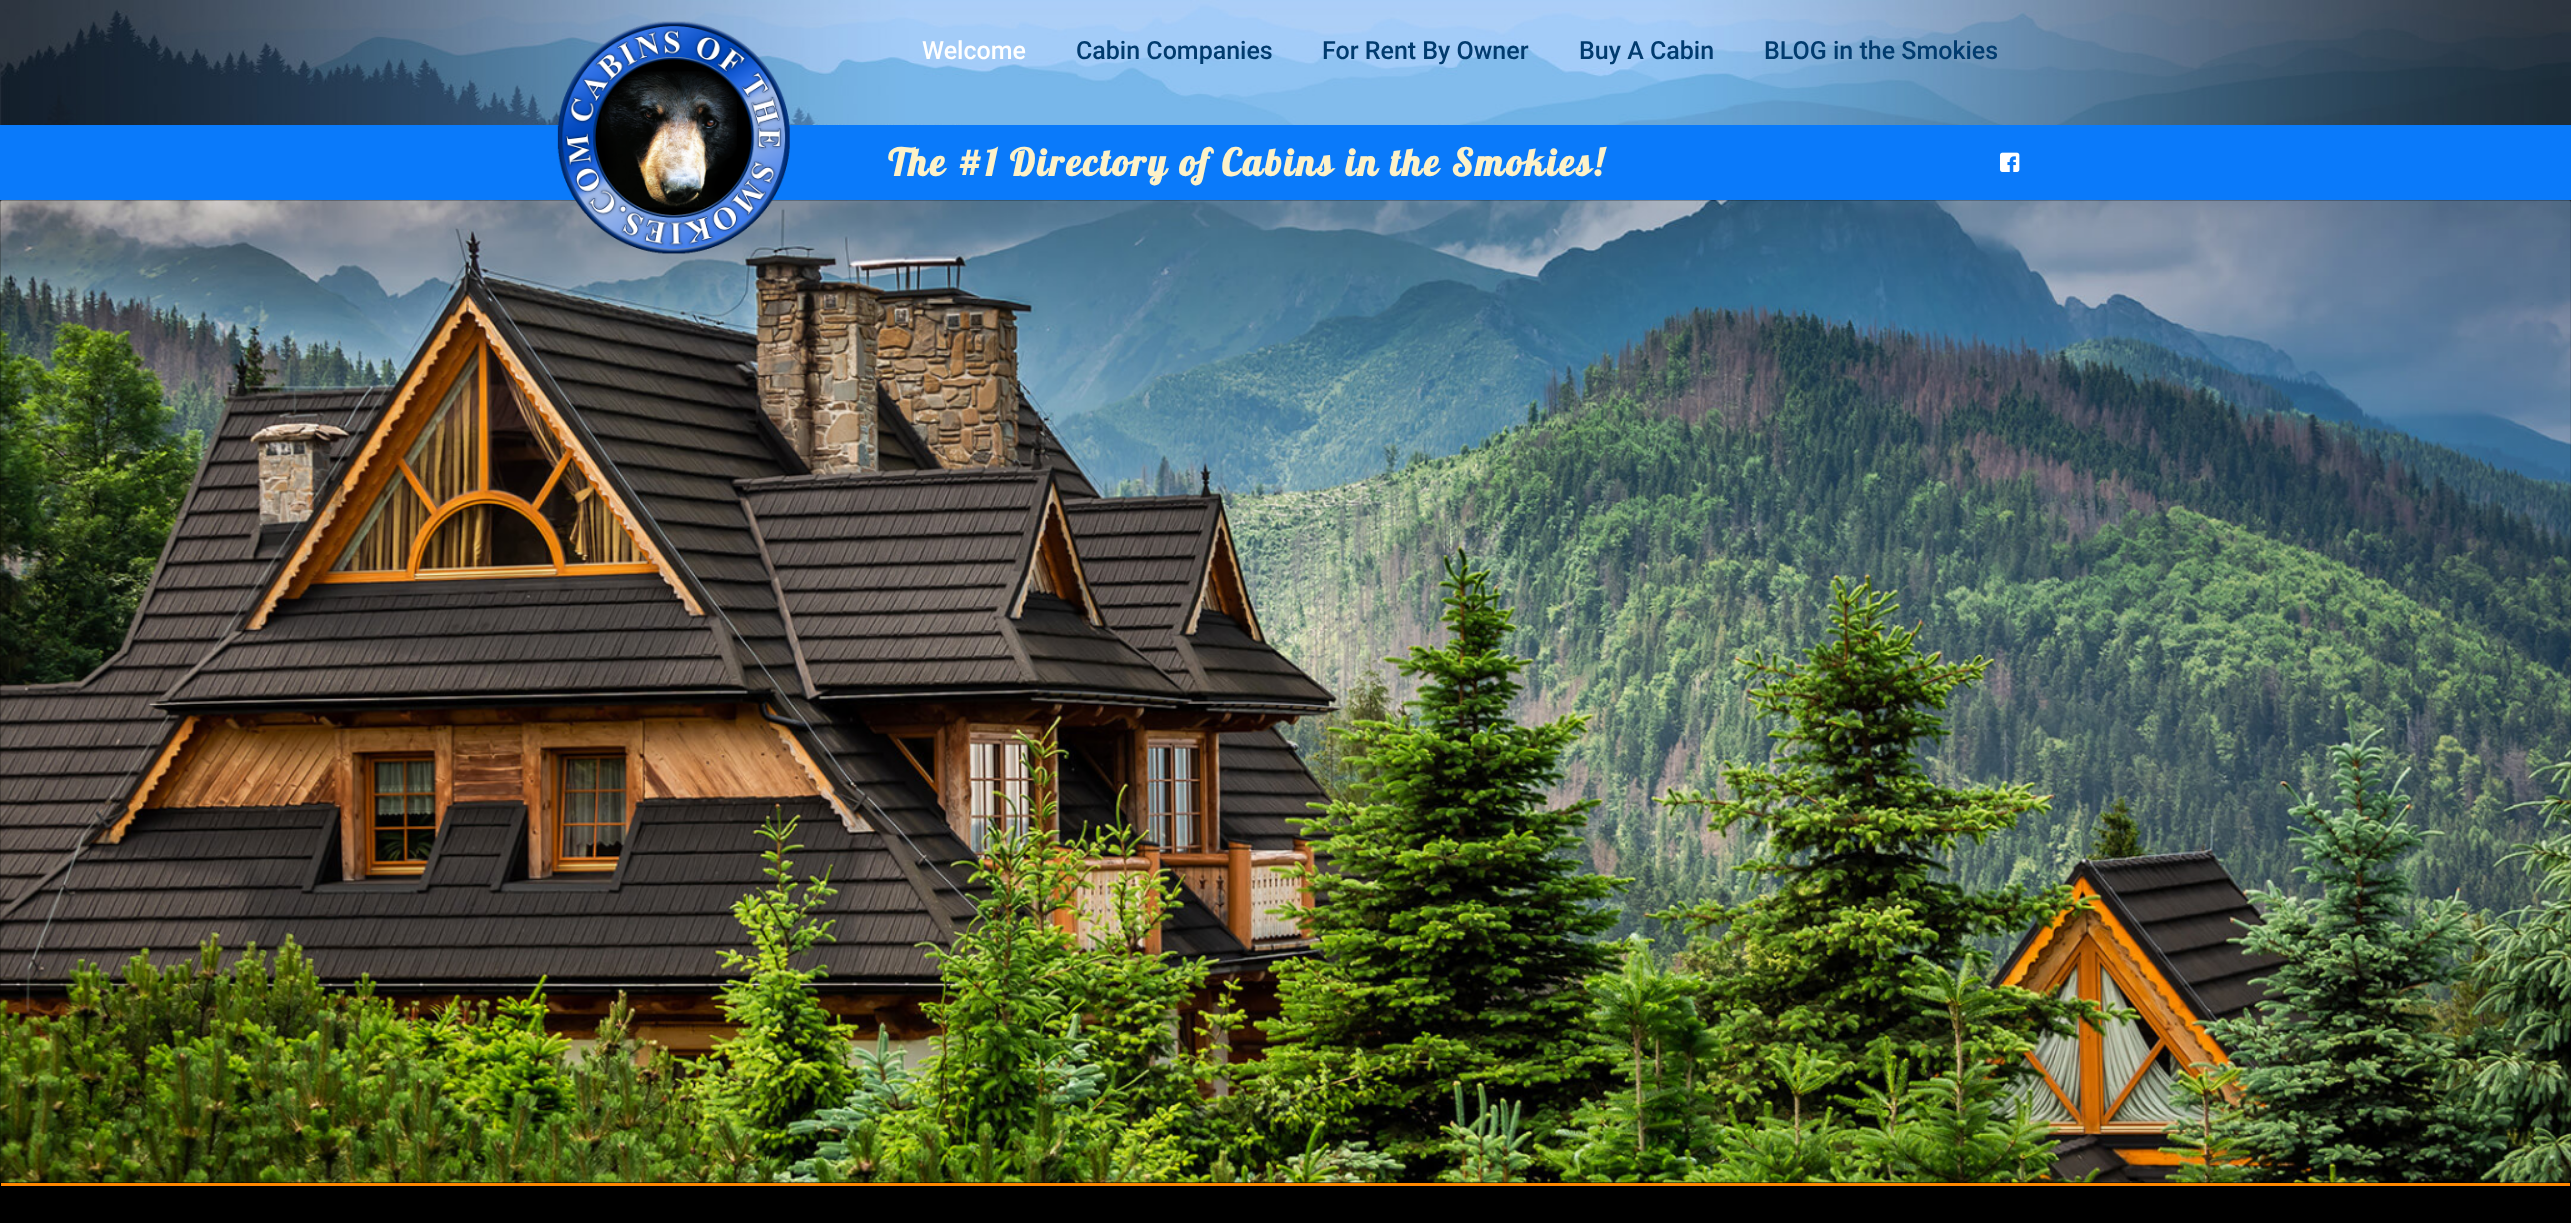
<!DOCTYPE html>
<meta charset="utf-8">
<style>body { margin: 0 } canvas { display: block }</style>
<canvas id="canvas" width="2571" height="1223"></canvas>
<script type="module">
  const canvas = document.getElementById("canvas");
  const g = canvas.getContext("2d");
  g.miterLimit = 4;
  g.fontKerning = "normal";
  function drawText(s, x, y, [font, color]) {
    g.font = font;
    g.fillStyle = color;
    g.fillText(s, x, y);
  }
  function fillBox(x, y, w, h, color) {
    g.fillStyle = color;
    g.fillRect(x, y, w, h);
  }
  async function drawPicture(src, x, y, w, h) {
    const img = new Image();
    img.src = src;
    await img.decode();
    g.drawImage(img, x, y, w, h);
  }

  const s1 = ["500 25px Roboto", "#FFFFFF"];
  const s2 = ["500 25px Roboto", "#013B6E"];
  const s3 = ["bold 37.5px Lobster", "#FDF2C8"];

  fillBox(0, 0, 2571, 1223, "#000000");
  await drawPicture("pic1.png", 0, 0, 2571, 125);
  fillBox(0, 125, 2571, 75, "#0A7AFA");
  await drawPicture("pic4.png", 0, 200, 2571, 983);
  await drawPicture("pic2.png", 557, 21, 233, 233);
  drawText("Welcome", 922, 59, s1);
  drawText("Cabin Companies", 1076, 59, s2);
  drawText("For Rent By Owner", 1322, 59, s2);
  drawText("Buy A Cabin", 1579, 59, s2);
  drawText("BLOG in the Smokies", 1764, 59, s2);
  g.letterSpacing = "2.5px";
  drawText("The #1 Directory of Cabins in the Smokies!", 888, 176, s3);
  await drawPicture("pic3.png", 2000, 152, 20, 20);
  fillBox(1, 1183, 2569, 3, "#FF8800");
</script>
